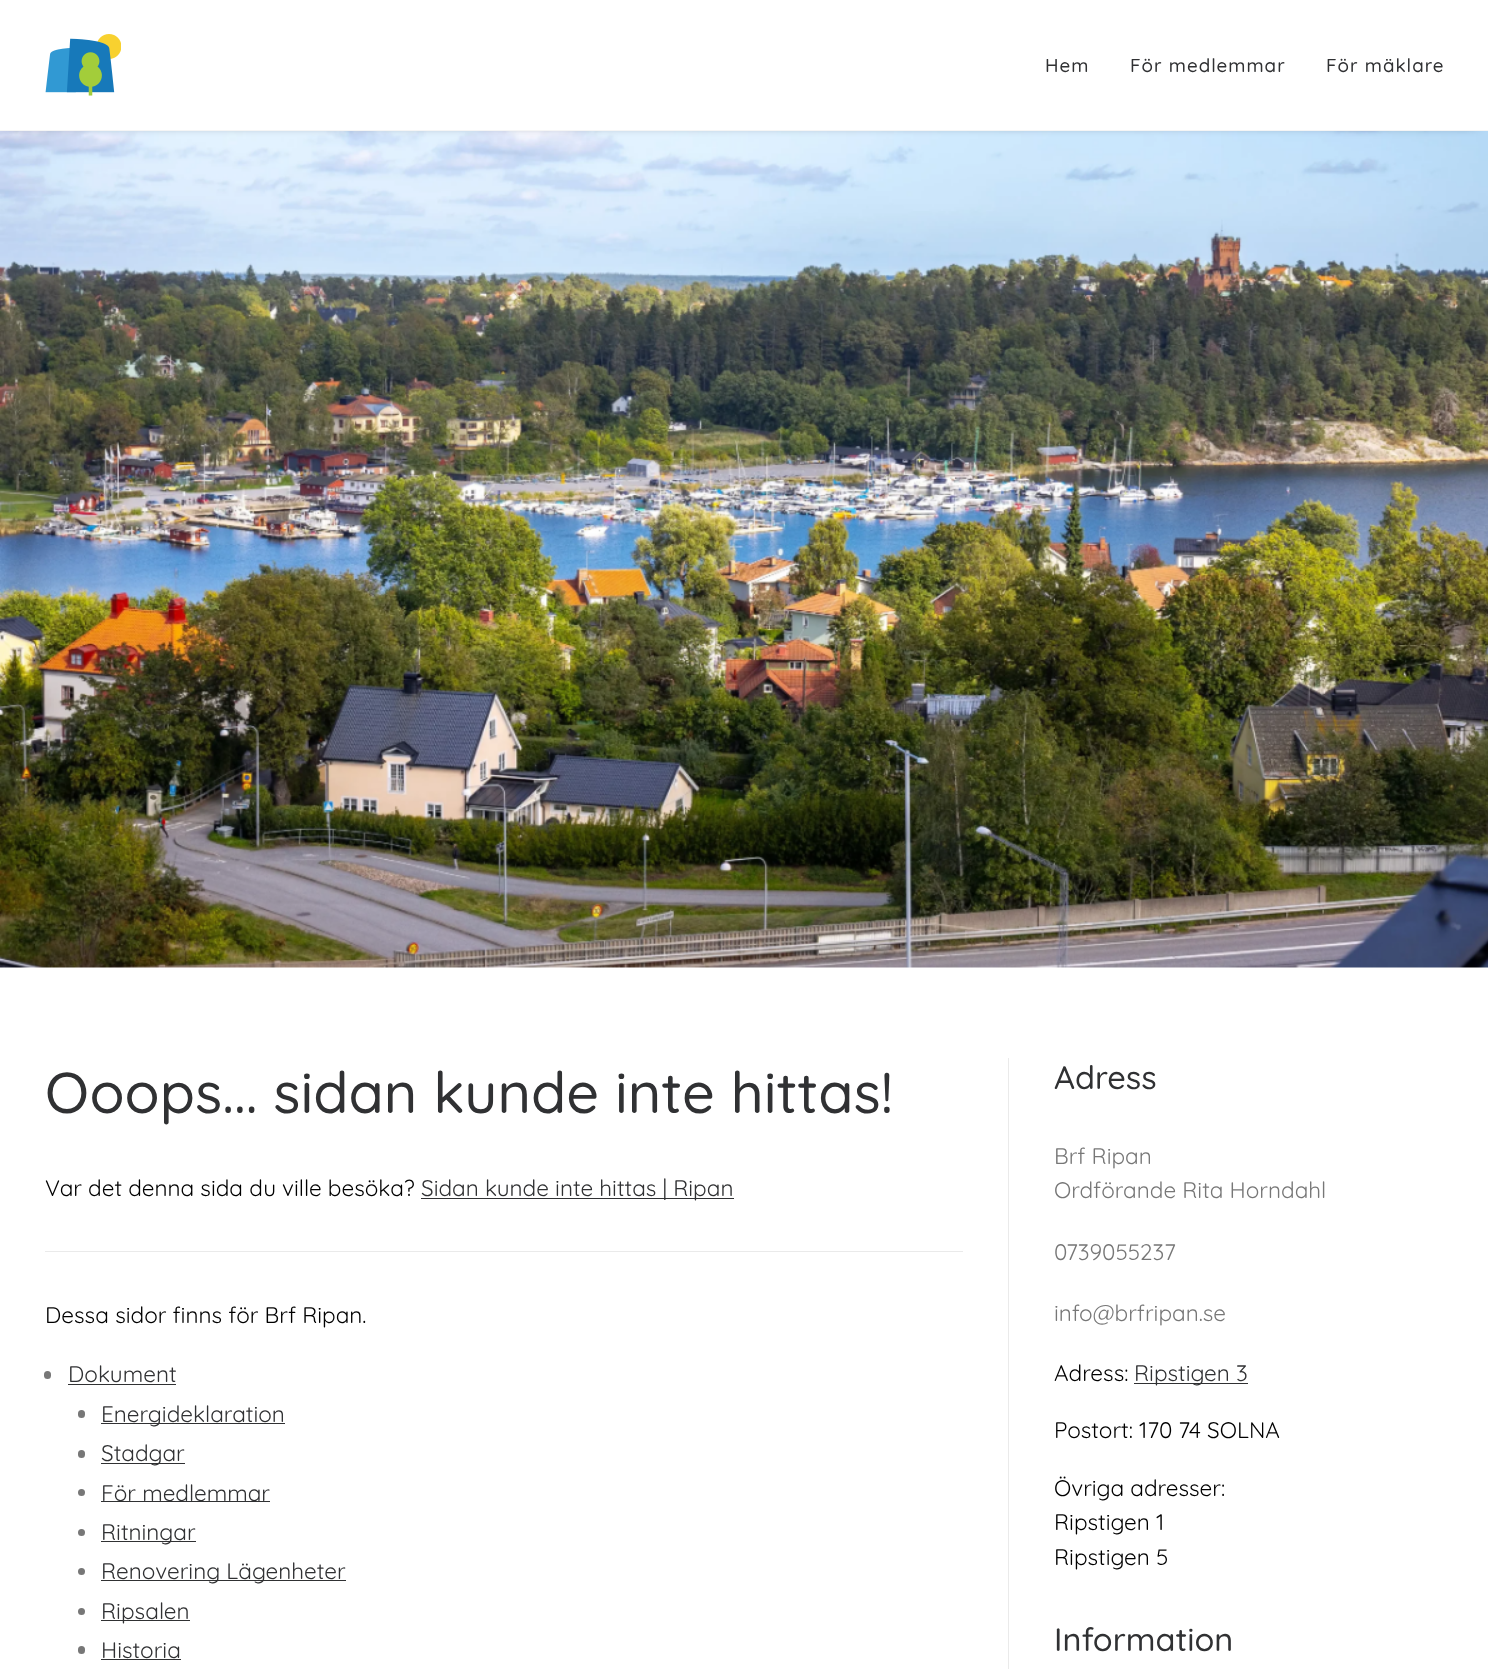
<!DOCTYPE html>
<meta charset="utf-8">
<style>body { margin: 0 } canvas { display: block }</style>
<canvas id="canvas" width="1488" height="1669"></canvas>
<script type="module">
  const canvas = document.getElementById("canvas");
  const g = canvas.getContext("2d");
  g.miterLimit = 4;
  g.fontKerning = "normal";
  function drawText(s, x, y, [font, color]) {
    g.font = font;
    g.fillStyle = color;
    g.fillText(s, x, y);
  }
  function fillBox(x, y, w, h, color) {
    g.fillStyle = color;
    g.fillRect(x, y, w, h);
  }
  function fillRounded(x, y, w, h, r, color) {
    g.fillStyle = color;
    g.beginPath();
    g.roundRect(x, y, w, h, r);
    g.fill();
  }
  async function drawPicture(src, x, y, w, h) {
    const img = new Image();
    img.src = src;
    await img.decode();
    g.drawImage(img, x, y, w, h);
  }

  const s1 = ["500 18.75px Quicksand", "#303133"];
  const s2 = ["500 57.5px Quicksand", "#303133"];
  const s3 = ["22.5px Quicksand", "#000000"];
  const s4 = ["22.5px Quicksand", "#303133"];
  const s5 = ["500 32.5px Quicksand", "#303133"];
  const s6 = ["22.5px Quicksand", "#777777"];

  fillBox(0, 0, 1488, 1669, "#FFFFFF");
  await drawPicture("pic2.png", 0, 131, 1488, 837);
  g.fillStyle = "rgba(0, 0, 0, 0.6)";
  g.filter = "blur(6px)";
  g.beginPath();
  g.rect(13, 18, 1463, 106);
  g.fill();
  g.filter = "none";
  fillBox(0, 5, 1488, 125, "#FFFFFF");
  fillBox(0, 130, 1488, 1, "#F5F5F5");
  await drawPicture("pic1.png", 45, 34, 76, 62);
  g.letterSpacing = "1px";
  drawText("Hem", 1045, 72, s1);
  drawText("För medlemmar", 1130, 72, s1);
  drawText("För mäklare", 1326, 72, s1);
  g.letterSpacing = "0px";
  drawText("Ooops... sidan kunde inte hittas!", 45, 1113, s2);
  drawText("Var det denna sida du ville besöka?", 45, 1196, s3);
  fillBox(421, 1198, 313, 1, "#303133");
  drawText("Sidan kunde inte hittas | Ripan", 421, 1196, s4);
  fillBox(45, 1251, 918, 1, "#EAEAEA");
  drawText("Dessa sidor finns för Brf Ripan.", 45, 1323, s3);
  fillRounded(44, 1371, 7, 8, 3.5, "#777777");
  drawText("Dokument", 68, 1382, s4);
  fillBox(68, 1384, 108, 1, "#303133");
  fillRounded(78, 1410, 7, 8, 3.5, "#777777");
  fillBox(101, 1423, 184, 1, "#303133");
  drawText("Energideklaration", 101, 1422, s4);
  fillRounded(78, 1450, 7, 8, 3.5, "#777777");
  fillBox(101, 1463, 84, 1, "#303133");
  drawText("Stadgar", 101, 1461, s4);
  g.fillStyle = "#777777";
  g.beginPath();
  g.arc(81.5, 1492.5, 3.5, 0, Math.PI * 2);
  g.fill();
  fillBox(101, 1501, 169, 1, "#303133");
  drawText("För medlemmar", 101, 1501, s4);
  g.fillStyle = "#777777";
  g.beginPath();
  g.arc(81.5, 1532.5, 3.5, 0, Math.PI * 2);
  g.fill();
  fillBox(101, 1541, 95, 1, "#303133");
  drawText("Ritningar", 101, 1540, s4);
  g.fillStyle = "#777777";
  g.beginPath();
  g.arc(81.5, 1571.5, 3.5, 0, Math.PI * 2);
  g.fill();
  fillBox(101, 1580, 245, 1, "#303133");
  drawText("Renovering Lägenheter", 101, 1579, s4);
  g.fillStyle = "#777777";
  g.beginPath();
  g.arc(81.5, 1611.5, 3.5, 0, Math.PI * 2);
  g.fill();
  fillBox(101, 1620, 89, 1, "#303133");
  drawText("Ripsalen", 101, 1619, s4);
  fillRounded(78, 1646, 7, 8, 3.5, "#777777");
  drawText("Historia", 101, 1658, s4);
  fillBox(101, 1659, 80, 1, "#303133");
  fillBox(1008, 1058, 1, 611, "#EAEAEA");
  drawText("Adress", 1054, 1089, s5);
  drawText("Brf Ripan", 1054, 1164, s6);
  drawText("Ordförande Rita Horndahl", 1054, 1198, s6);
  drawText("0739055237", 1054, 1260, s6);
  drawText("info@brfripan.se", 1054, 1321, s6);
  drawText("Adress:", 1054, 1381, s3);
  fillBox(1134, 1383, 114, 1, "#303133");
  drawText("Ripstigen 3", 1134, 1381, s4);
  drawText("Postort: 170 74 SOLNA", 1054, 1438, s3);
  drawText("Övriga adresser:", 1054, 1496, s3);
  drawText("Ripstigen 1", 1054, 1530, s3);
  drawText("Ripstigen 5", 1054, 1565, s3);
  drawText("Information", 1054, 1651, s5);
</script>
